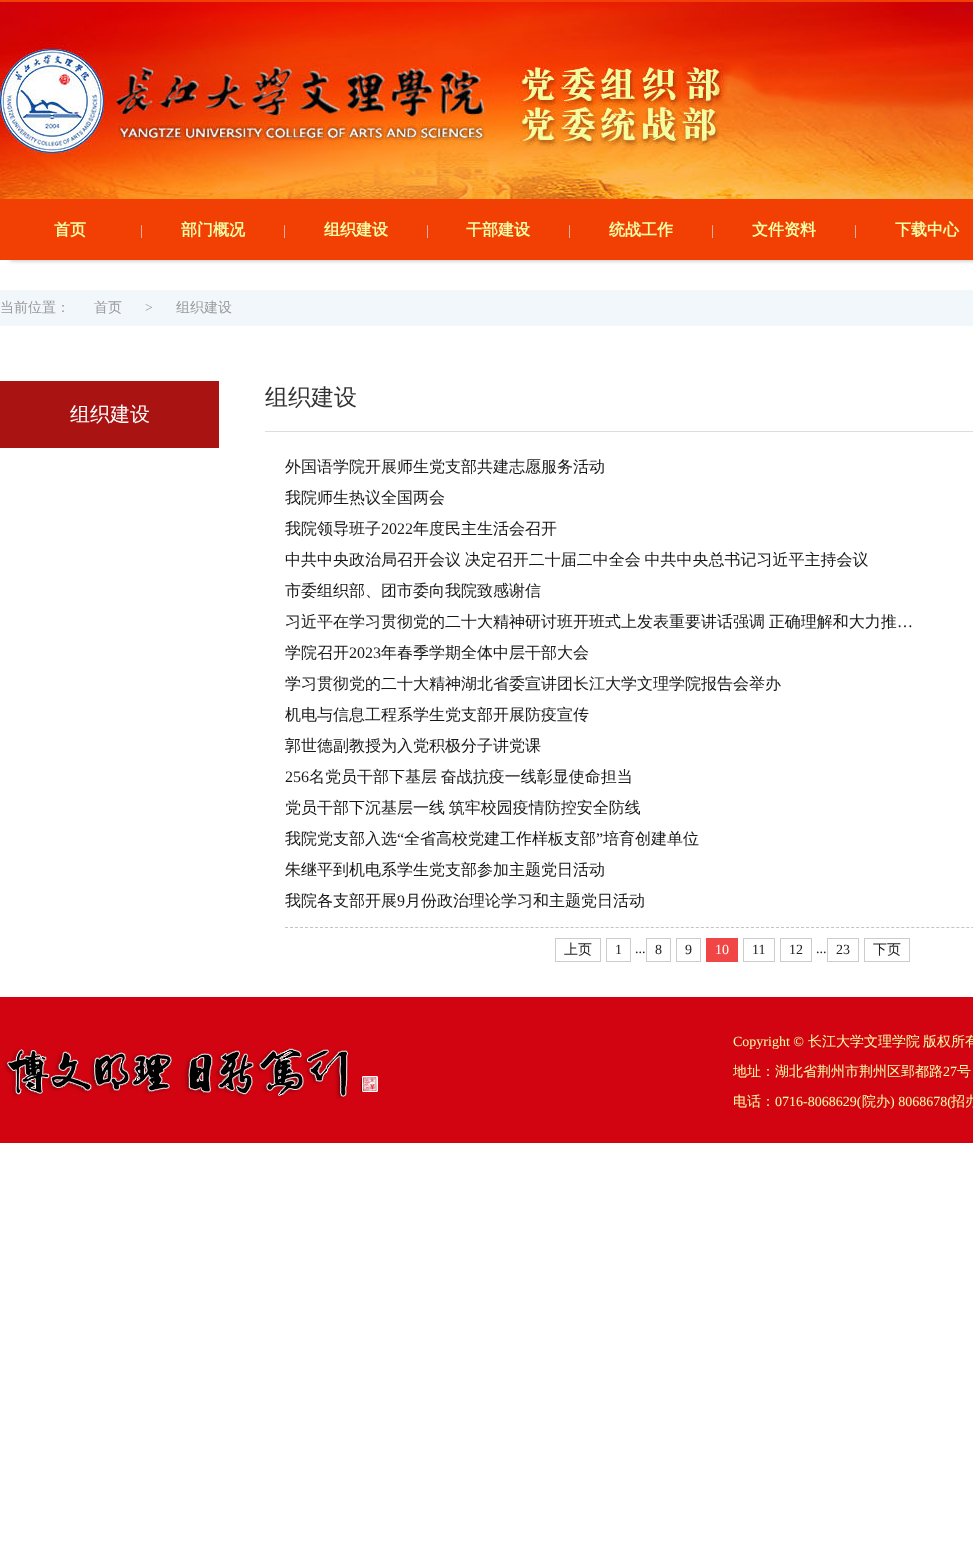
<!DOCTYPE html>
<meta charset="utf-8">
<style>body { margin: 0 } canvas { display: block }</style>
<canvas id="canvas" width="973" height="1545"></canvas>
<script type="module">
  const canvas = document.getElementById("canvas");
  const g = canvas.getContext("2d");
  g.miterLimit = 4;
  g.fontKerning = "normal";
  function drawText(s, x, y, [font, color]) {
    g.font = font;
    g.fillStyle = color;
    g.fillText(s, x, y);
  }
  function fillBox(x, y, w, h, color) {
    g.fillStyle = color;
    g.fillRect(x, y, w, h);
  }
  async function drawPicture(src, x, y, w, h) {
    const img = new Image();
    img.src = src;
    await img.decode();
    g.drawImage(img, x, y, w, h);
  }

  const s1 = ["bold 16px WenQuanYi Zen Hei", "#F4FEA5"];
  const s2 = ["14px Liberation Serif", "#DDDDDD"];
  const s3 = ["500 14px WenQuanYi Zen Hei", "#9A9A9A"];
  const s4 = ["14px Liberation Serif", "#9A9A9A"];
  const s5 = ["500 20px WenQuanYi Zen Hei", "#FFFFFF"];
  const s6 = ["500 23px WenQuanYi Zen Hei", "#323233"];
  const s7 = ["500 16px WenQuanYi Zen Hei", "#171717"];
  const s8 = ["16px Liberation Serif", "#171717"];
  const s9 = ["500 14px WenQuanYi Zen Hei", "#222222"];
  const s10 = ["14px Liberation Serif", "#222222"];
  const s11 = ["14px Liberation Serif", "#FFFFFF"];
  const s12 = ["14px Liberation Serif", "#F4FEA5"];
  const s13 = ["500 14px WenQuanYi Zen Hei", "#F4FEA5"];

  fillBox(0, 0, 973, 1545, "#FFFFFF");
  fillBox(0, 0, 973, 260, "#F23F03");
  await drawPicture("pic1.png", 0, 2, 973, 197);
  g.save();
  g.beginPath();
  g.rect(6, 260, 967, 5);
  g.clip();
  g.fillStyle = "#A9A9A9";
  g.filter = "blur(2.5px)";
  g.beginPath();
  g.rect(10, 210, 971, 50);
  g.fill();
  g.filter = "none";
  g.restore();
  drawText("首页", 54, 235, s1);
  drawText("|", 140, 235, s2);
  drawText("部门概况", 181, 235, s1);
  drawText("|", 283, 235, s2);
  drawText("组织建设", 324, 235, s1);
  drawText("|", 426, 235, s2);
  drawText("干部建设", 466, 235, s1);
  drawText("|", 568, 235, s2);
  drawText("统战工作", 609, 235, s1);
  drawText("|", 711, 235, s2);
  drawText("文件资料", 752, 235, s1);
  drawText("|", 854, 235, s2);
  drawText("下载中心", 895, 235, s1);
  fillBox(0, 290, 973, 36, "#F2F7FC");
  drawText("当前位置：", 0, 312, s3);
  drawText("首页", 94, 312, s3);
  drawText(">", 145, 312, s4);
  drawText("组织建设", 176, 312, s3);
  fillBox(0, 381, 219, 67, "#A91312");
  drawText("组织建设", 70, 421, s5);
  fillBox(265, 431, 708, 1, "#DDDDDD");
  drawText("组织建设", 265, 405, s6);
  g.beginPath();
  g.moveTo(285, 927.5);
  g.lineTo(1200, 927.5);
  g.strokeStyle = "#C6C4C1";
  g.setLineDash([3, 2.01]);
  g.stroke();
  drawText("外国语学院开展师生党支部共建志愿服务活动", 285, 472, s7);
  drawText("我院师生热议全国两会", 285, 503, s7);
  drawText("我院领导班子", 285, 534, s7);
  drawText("2022", 381, 534, s8);
  drawText("年度民主生活会召开", 413, 534, s7);
  g.wordSpacing = "-1px";
  drawText("中共中央政治局召开会议 决定召开二十届二中全会 中共中央总书记习近平主持会议", 285, 565, s7);
  g.wordSpacing = "0px";
  drawText("市委组织部、团市委向我院致感谢信", 285, 596, s7);
  g.wordSpacing = "-1px";
  drawText("习近平在学习贯彻党的二十大精神研讨班开班式上发表重要讲话强调 正确理解和大力推", 285, 627, s7);
  g.wordSpacing = "0px";
  drawText("…", 897, 627, s8);
  drawText("学院召开", 285, 658, s7);
  drawText("2023", 349, 658, s8);
  drawText("年春季学期全体中层干部大会", 381, 658, s7);
  drawText("学习贯彻党的二十大精神湖北省委宣讲团长江大学文理学院报告会举办", 285, 689, s7);
  drawText("机电与信息工程系学生党支部开展防疫宣传", 285, 720, s7);
  drawText("郭世德副教授为入党积极分子讲党课", 285, 751, s7);
  drawText("256", 285, 782, s8);
  g.wordSpacing = "-1px";
  drawText("名党员干部下基层 奋战抗疫一线彰显使命担当", 309, 782, s7);
  drawText("党员干部下沉基层一线 筑牢校园疫情防控安全防线", 285, 813, s7);
  g.wordSpacing = "0px";
  drawText("我院党支部入选", 285, 844, s7);
  drawText("“", 397, 844, s8);
  drawText("全省高校党建工作样板支部", 404, 844, s7);
  drawText("”", 596, 844, s8);
  drawText("培育创建单位", 603, 844, s7);
  drawText("朱继平到机电系学生党支部参加主题党日活动", 285, 875, s7);
  drawText("我院各支部开展", 285, 906, s7);
  drawText("9", 397, 906, s8);
  drawText("月份政治理论学习和主题党日活动", 405, 906, s7);
  g.strokeStyle = "#CCCCCC";
  g.setLineDash([]);
  g.strokeRect(555.5, 938.5, 45, 23);
  drawText("上页", 564, 954, s9);
  g.strokeRect(606.5, 938.5, 24, 23);
  drawText("1", 615, 954, s10);
  drawText("...", 635, 953, s10);
  g.strokeRect(646.5, 938.5, 24, 23);
  drawText("8", 655, 954, s10);
  g.strokeRect(676.5, 938.5, 24, 23);
  drawText("9", 685, 954, s10);
  fillBox(706, 938, 32, 24, "#F04646");
  drawText("10", 715, 954, s11);
  g.strokeRect(743.5, 938.5, 31, 23);
  drawText("11", 752, 954, s10);
  g.strokeRect(780.5, 938.5, 31, 23);
  drawText("12", 789, 954, s10);
  drawText("...", 816, 953, s10);
  g.strokeRect(827.5, 938.5, 31, 23);
  drawText("23", 836, 954, s10);
  g.strokeRect(864.5, 938.5, 45, 23);
  drawText("下页", 873, 954, s9);
  fillBox(0, 997, 973, 146, "#D20411");
  await drawPicture("pic2.png", 3, 1047, 375, 53);
  drawText("Copyright ©", 733, 1046, s12);
  drawText("长江大学文理学院", 808, 1046, s13);
  drawText("版权所有", 923, 1046, s13);
  drawText("地址：湖北省荆州市荆州区郢都路", 733, 1076, s13);
  drawText("27", 943, 1076, s12);
  drawText("号", 957, 1076, s13);
  drawText("电话：", 733, 1106, s13);
  drawText("0716-8068629(", 775, 1106, s12);
  drawText("院办", 862, 1106, s13);
  drawText(") 8068678(", 890, 1106, s12);
  drawText("招办", 951, 1106, s13);
</script>
